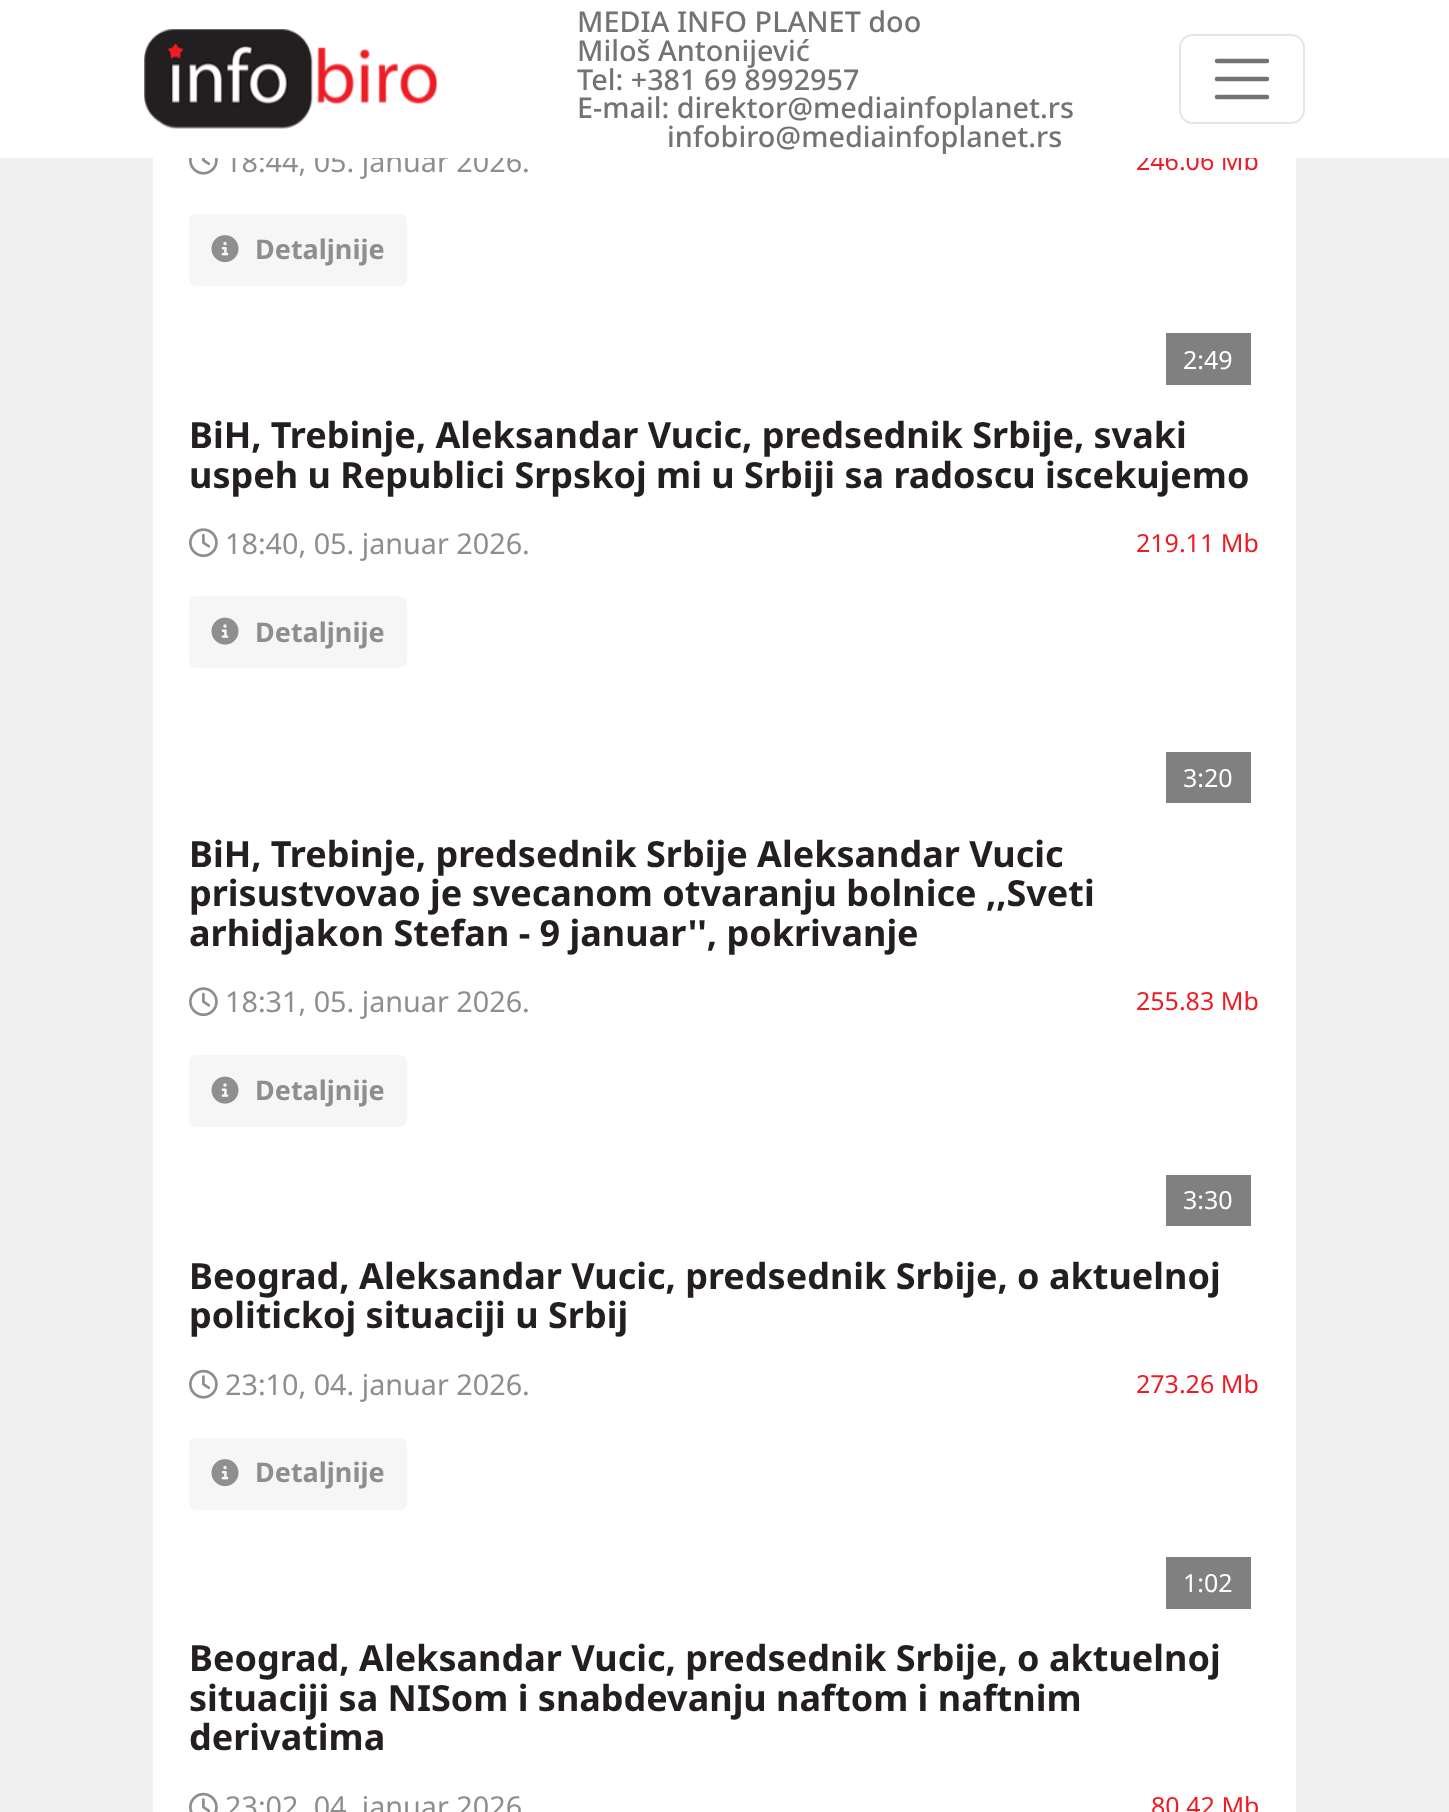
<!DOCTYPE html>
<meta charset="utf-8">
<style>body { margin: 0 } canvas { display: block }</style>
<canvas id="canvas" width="1449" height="1812"></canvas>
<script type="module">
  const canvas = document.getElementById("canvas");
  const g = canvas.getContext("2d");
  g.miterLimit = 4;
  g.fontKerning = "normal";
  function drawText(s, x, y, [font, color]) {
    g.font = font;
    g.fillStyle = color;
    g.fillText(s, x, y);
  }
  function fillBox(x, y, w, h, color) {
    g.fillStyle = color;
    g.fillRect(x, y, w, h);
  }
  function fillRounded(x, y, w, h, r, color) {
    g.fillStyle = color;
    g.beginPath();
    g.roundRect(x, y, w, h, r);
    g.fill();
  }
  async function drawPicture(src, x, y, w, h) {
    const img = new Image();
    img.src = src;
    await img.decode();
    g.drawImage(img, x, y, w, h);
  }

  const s1 = ["28.75px Noto Sans", "#8E8E8E"];
  const s2 = ["25px Noto Sans", "#ED1C24"];
  const s3 = ["500 28.75px Noto Sans", "#737373"];
  const s4 = ["bold 27px Noto Sans", "#8E8E8E"];
  const s5 = ["25px Noto Sans", "#FFFFFF"];
  const s6 = ["bold 36px Noto Sans", "#231F20"];

  fillBox(0, 0, 1449, 1812, "#F0F0F0");
  fillBox(153, 158, 1143, 1654, "#FFFFFF");
  drawText("18:44, 05. januar 2026.", 225, 172, s1);
  drawText("246.06 Mb", 1136, 170, s2);
  fillBox(0, 0, 1449, 158, "#FFFFFF");
  await drawPicture("pic1.png", 144, 29, 293, 100);
  drawText("MEDIA INFO PLANET doo", 577, 32, s3);
  drawText("Miloš Antonijević", 577, 61, s3);
  drawText("Tel: +381 69 8992957", 577, 90, s3);
  drawText("E-mail: direktor@mediainfoplanet.rs", 577, 118, s3);
  drawText("infobiro@mediainfoplanet.rs", 667, 147, s3);
  g.beginPath();
  g.roundRect(1180, 35, 124, 88, 13);
  g.strokeStyle = "#E6E6E6";
  g.lineWidth = 2;
  g.stroke();
  g.beginPath();
  g.moveTo(1217, 61);
  g.lineTo(1267, 61);
  g.moveTo(1217, 79);
  g.lineTo(1267, 79);
  g.moveTo(1217, 97);
  g.lineTo(1267, 97);
  g.strokeStyle = "#737373";
  g.lineWidth = 4.5;
  g.lineCap = "round";
  g.stroke();
  await drawPicture("pic2.png", 189, 158, 29, 17);
  fillRounded(189, 214, 218, 72, 7, "#F6F6F6");
  await drawPicture("pic3.png", 211, 235, 28, 28);
  drawText("Detaljnije", 255, 259, s4);
  fillBox(1166, 333, 85, 52, "#808080");
  drawText("2:49", 1183, 369, s5);
  drawText("BiH, Trebinje, Aleksandar Vucic, predsednik Srbije, svaki", 189, 448, s6);
  drawText("uspeh u Republici Srpskoj mi u Srbiji sa radoscu iscekujemo", 189, 488, s6);
  await drawPicture("pic4.png", 189, 528, 29, 30);
  drawText("18:40, 05. januar 2026.", 225, 554, s1);
  drawText("219.11 Mb", 1136, 552, s2);
  fillRounded(189, 596, 218, 72, 7, "#F6F6F6");
  await drawPicture("pic5.png", 211, 617, 28, 28);
  drawText("Detaljnije", 255, 642, s4);
  fillBox(1166, 752, 85, 51, "#808080");
  drawText("3:20", 1183, 787, s5);
  drawText("BiH, Trebinje, predsednik Srbije Aleksandar Vucic", 189, 867, s6);
  drawText("prisustvovao je svecanom otvaranju bolnice ,,Sveti", 189, 906, s6);
  drawText("arhidjakon Stefan - 9 januar'', pokrivanje", 189, 946, s6);
  await drawPicture("pic4.png", 189, 987, 29, 30);
  drawText("18:31, 05. januar 2026.", 225, 1012, s1);
  drawText("255.83 Mb", 1136, 1010, s2);
  fillRounded(189, 1055, 218, 72, 7, "#F6F6F6");
  await drawPicture("pic5.png", 211, 1076, 28, 28);
  drawText("Detaljnije", 255, 1100, s4);
  fillBox(1166, 1175, 85, 51, "#808080");
  drawText("3:30", 1183, 1209, s5);
  drawText("Beograd, Aleksandar Vucic, predsednik Srbije, o aktuelnoj", 189, 1289, s6);
  drawText("politickoj situaciji u Srbij", 189, 1328, s6);
  await drawPicture("pic6.png", 189, 1369, 29, 30);
  drawText("23:10, 04. januar 2026.", 225, 1395, s1);
  drawText("273.26 Mb", 1136, 1393, s2);
  fillRounded(189, 1438, 218, 72, 7, "#F6F6F6");
  await drawPicture("pic3.png", 211, 1459, 28, 28);
  drawText("Detaljnije", 255, 1482, s4);
  fillBox(1166, 1557, 85, 52, "#808080");
  drawText("1:02", 1183, 1592, s5);
  drawText("Beograd, Aleksandar Vucic, predsednik Srbije, o aktuelnoj", 189, 1671, s6);
  drawText("situaciji sa NISom i snabdevanju naftom i naftnim", 189, 1711, s6);
  drawText("derivatima", 189, 1750, s6);
  await drawPicture("pic7.png", 189, 1792, 29, 20);
  drawText("23:02, 04. januar 2026", 225, 1817, s1);
  drawText("80.42 Mb", 1151, 1815, s2);
</script>
